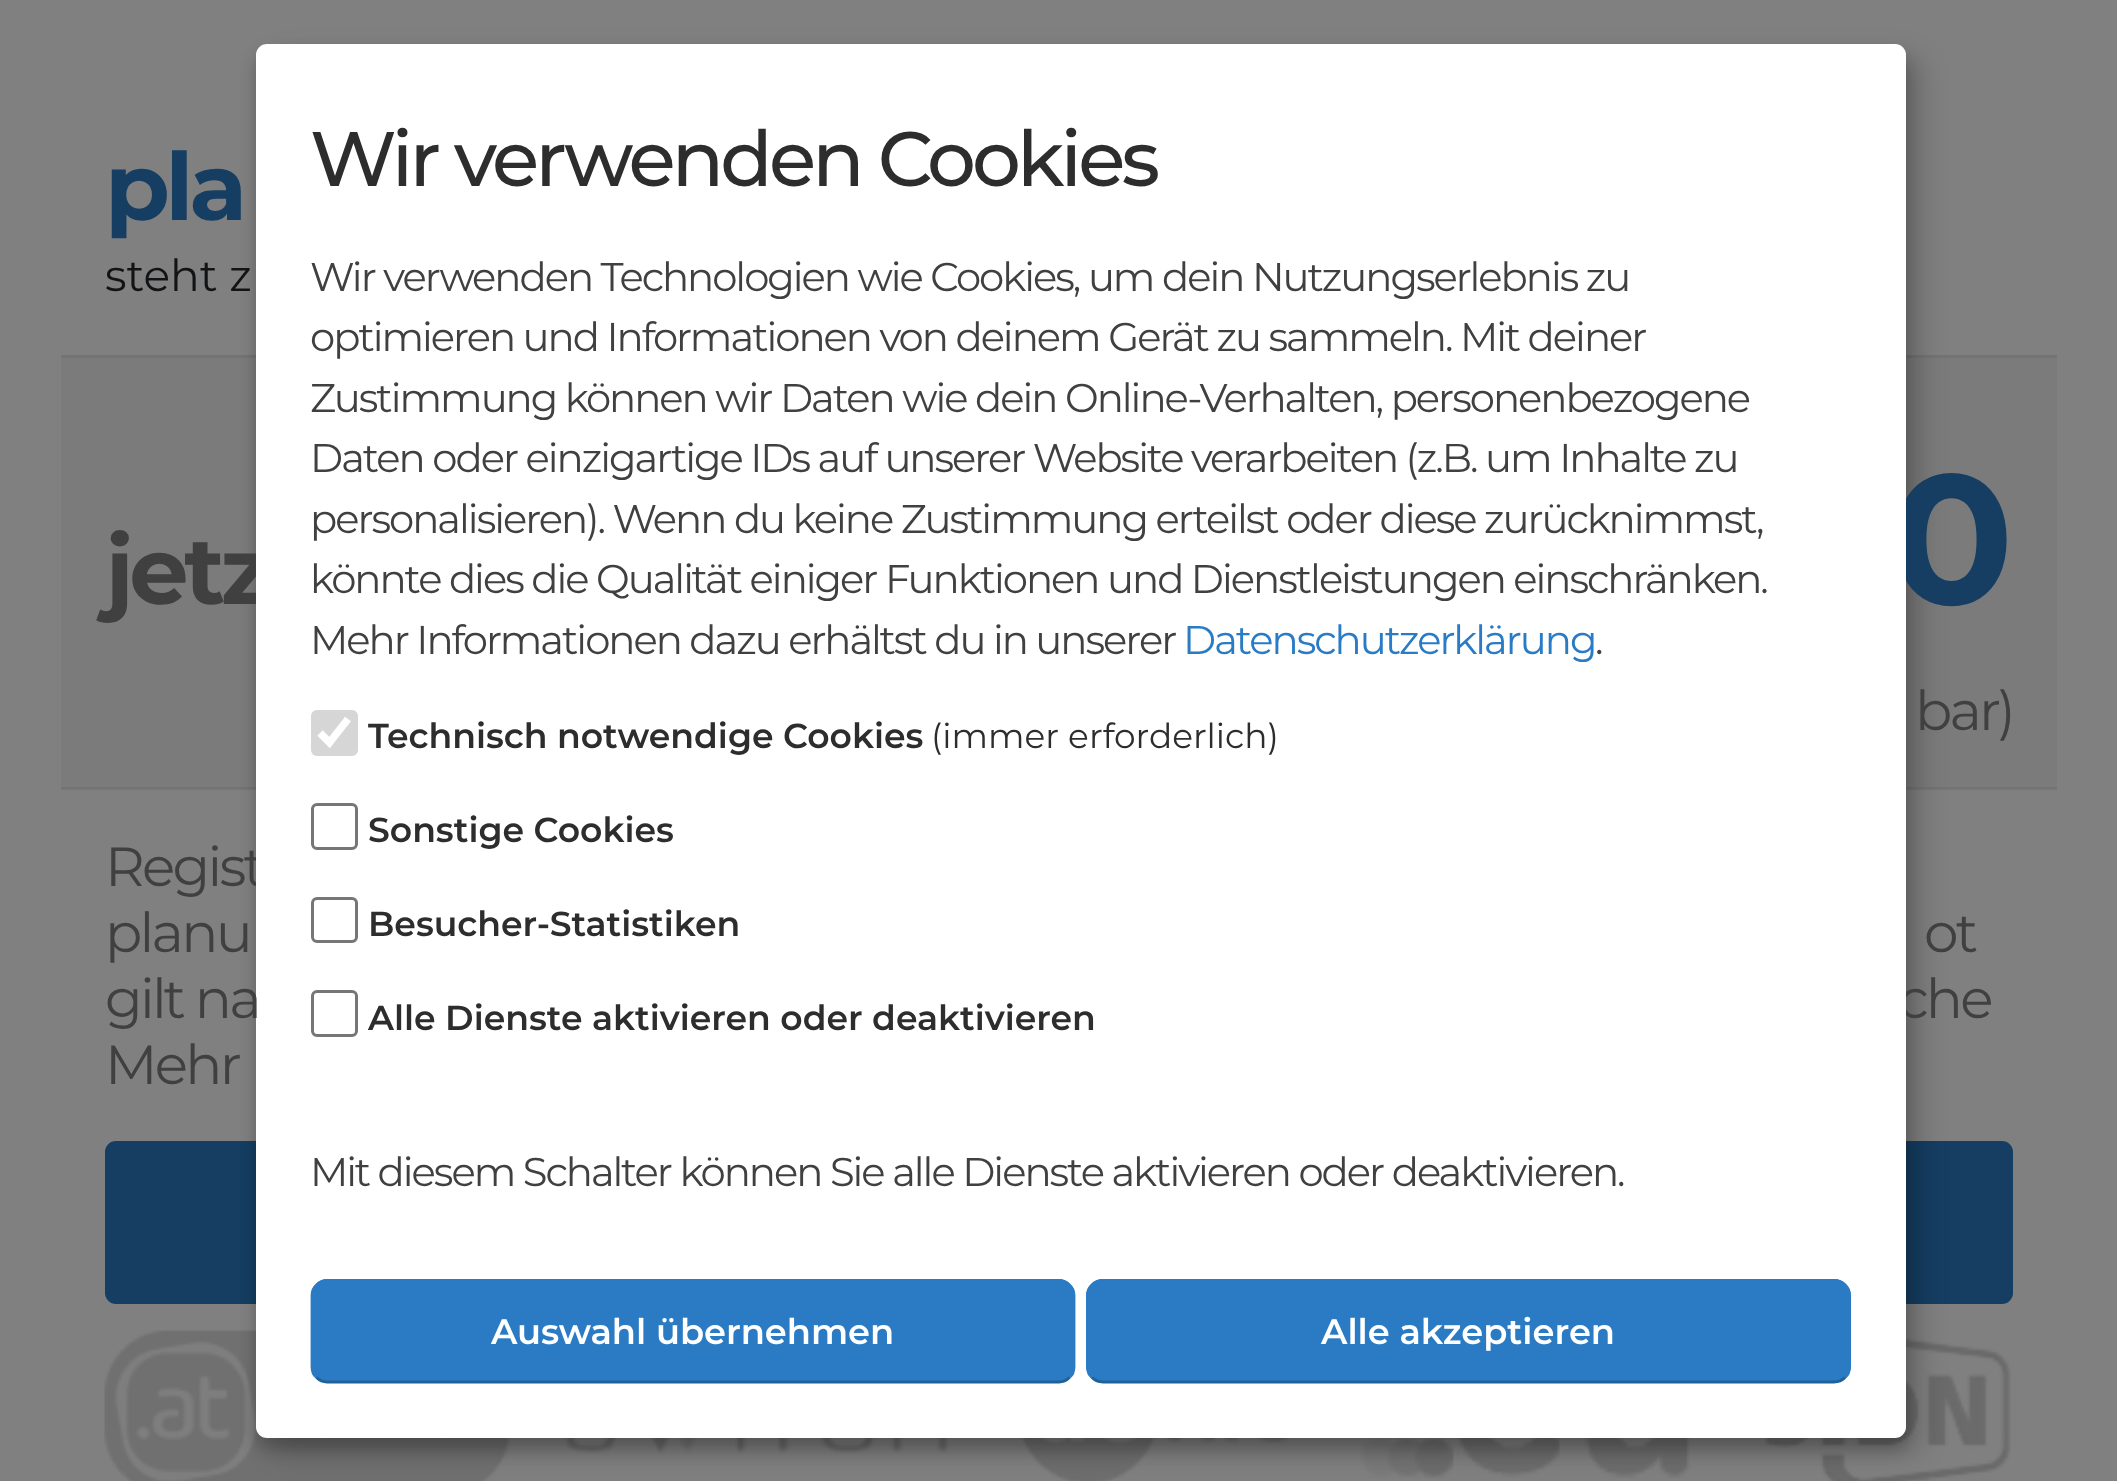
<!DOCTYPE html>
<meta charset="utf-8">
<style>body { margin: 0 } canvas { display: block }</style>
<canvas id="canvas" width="2117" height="1481"></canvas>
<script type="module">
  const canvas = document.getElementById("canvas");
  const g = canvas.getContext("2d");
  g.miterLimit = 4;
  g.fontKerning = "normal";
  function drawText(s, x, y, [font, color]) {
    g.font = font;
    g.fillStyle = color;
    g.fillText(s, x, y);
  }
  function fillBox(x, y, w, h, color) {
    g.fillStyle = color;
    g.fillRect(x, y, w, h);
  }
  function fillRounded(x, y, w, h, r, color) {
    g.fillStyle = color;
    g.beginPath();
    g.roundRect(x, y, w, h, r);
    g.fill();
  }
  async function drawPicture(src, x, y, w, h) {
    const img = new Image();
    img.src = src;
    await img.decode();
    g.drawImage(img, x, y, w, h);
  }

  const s1 = ["bold 94px Montserrat", "#404040"];
  const s2 = ["bold 184px Montserrat", "#153E62"];
  const s3 = ["55px Montserrat", "#404040"];
  const s4 = ["500 77px Montserrat", "#2D2D2D"];
  const s5 = ["40.15px Montserrat", "#404040"];
  const s6 = ["40.15px Montserrat", "#2A7BC5"];
  const s7 = ["600 34.65px Montserrat", "#2D2D2D"];
  const s8 = ["34.4px Montserrat", "#2D2D2D"];
  const s9 = ["600 35.25px Montserrat", "#FFFFFF"];
  const s10 = ["bold 94px Montserrat", "#153E62"];
  const s11 = ["44px Montserrat", "#111315"];

  fillBox(0, 0, 2117, 1481, "#808080");
  fillBox(61, 789, 1996, 1, "#777777");
  fillBox(61, 358, 1996, 429, "#7B7B7B");
  fillBox(61, 787, 1996, 2, "#747474");
  fillBox(61, 355, 1996, 3, "#747474");
  fillRounded(105, 1141, 1908, 163, 11, "#153E62");
  await drawPicture("pic1.png", 104, 1330, 1907, 151);
  g.fillStyle = "rgba(0, 0, 0, 0.19)";
  g.filter = "blur(14px)";
  g.beginPath();
  g.roundRect(270, 58, 1650, 1394, 11);
  g.fill();
  g.filter = "none";
  g.fillStyle = "rgba(0, 0, 0, 0.2)";
  g.filter = "blur(8px)";
  g.beginPath();
  g.roundRect(256, 55, 1650, 1394, 11);
  g.fill();
  g.filter = "none";
  g.letterSpacing = "-4.5px";
  drawText("jetz", 105, 604, s1);
  drawText("0", 1889, 604, s2);
  g.letterSpacing = "-2.75px";
  drawText("Regist", 105, 886, s3);
  drawText("che", 1898, 1018, s3);
  fillRounded(256, 44, 1650, 1394, 11, "#FFFFFF");
  g.letterSpacing = "-3.85px";
  drawText("Wir verwenden Cookies", 310, 186, s4);
  g.letterSpacing = "-2px";
  drawText("Wir verwenden Technologien wie Cookies, um dein Nutzungserlebnis zu", 310, 291, s5);
  drawText("optimieren und Informationen von deinem Gerät zu sammeln. Mit deiner", 310, 351, s5);
  drawText("Zustimmung können wir Daten wie dein Online-Verhalten, personenbezogene", 310, 412, s5);
  drawText("Daten oder einzigartige IDs auf unserer Website verarbeiten (z.B. um Inhalte zu", 310, 472, s5);
  drawText("personalisieren). Wenn du keine Zustimmung erteilst oder diese zurücknimmst,", 310, 533, s5);
  drawText("könnte dies die Qualität einiger Funktionen und Dienstleistungen einschränken.", 310, 593, s5);
  drawText("Mehr Informationen dazu erhältst du in unserer", 310, 654, s5);
  drawText("Datenschutzerklärung", 1183, 654, s6);
  drawText(".", 1595, 654, s5);
  fillRounded(311, 710, 47, 46, 6, "#D6D6D6");
  g.beginPath();
  g.moveTo(320, 733);
  g.lineTo(329.5, 742.5);
  g.lineTo(348, 719);
  g.strokeStyle = "#FFFFFF";
  g.lineWidth = 7.5;
  g.stroke();
  g.letterSpacing = "0px";
  drawText("Technisch notwendige Cookies", 368, 748, s7);
  drawText("(immer erforderlich)", 931, 748, s8);
  g.beginPath();
  g.roundRect(312.5, 804.5, 44, 44, 4.5);
  g.strokeStyle = "#767676";
  g.lineWidth = 3;
  g.stroke();
  drawText("Sonstige Cookies", 368, 842, s7);
  g.beginPath();
  g.roundRect(312.5, 898.5, 44, 43, 4.5);
  g.stroke();
  drawText("Besucher-Statistiken", 368, 936, s7);
  g.beginPath();
  g.roundRect(312.5, 991.5, 44, 44, 4.5);
  g.stroke();
  drawText("Alle Dienste aktivieren oder deaktivieren", 368, 1030, s7);
  g.letterSpacing = "-2px";
  drawText("Mit diesem Schalter können Sie alle Dienste aktivieren oder deaktivieren.", 310, 1186, s5);
  fillRounded(311, 1279, 764, 104, 17, "#2A7BC4");
  g.beginPath();
  g.moveTo(1069.5, 1377.5);
  g.bezierCurveTo(1066.5, 1380.5, 1063, 1382, 1059, 1382);
  g.lineTo(327, 1382);
  g.bezierCurveTo(323, 1382, 319.5, 1380.5, 316.5, 1377.5);
  g.strokeStyle = "#21619A";
  g.lineWidth = 2.8;
  g.stroke();
  g.beginPath();
  g.moveTo(316.5, 1377.5);
  g.bezierCurveTo(313.5, 1375, 312, 1371, 312, 1367);
  g.lineTo(312, 1295.5);
  g.bezierCurveTo(312, 1291.5, 313.5, 1287.5, 316.5, 1285);
  g.bezierCurveTo(319.5, 1282, 323, 1280.5, 327, 1280.5);
  g.lineTo(1059, 1280.5);
  g.bezierCurveTo(1063, 1280.5, 1066.5, 1282, 1069.5, 1285);
  g.bezierCurveTo(1072.5, 1287.5, 1074, 1291.5, 1074, 1295.5);
  g.lineTo(1074, 1367);
  g.bezierCurveTo(1074, 1371, 1072.5, 1375, 1069.5, 1377.5);
  g.strokeStyle = "#2A7BC4";
  g.stroke();
  g.letterSpacing = "0px";
  drawText("Auswahl übernehmen", 491, 1344, s9);
  fillRounded(1086, 1279, 765, 104, 17, "#2A7BC4");
  g.beginPath();
  g.moveTo(1845, 1377.5);
  g.bezierCurveTo(1842, 1380.5, 1838.5, 1382, 1834, 1382);
  g.lineTo(1103, 1382);
  g.bezierCurveTo(1098.5, 1382, 1095, 1380.5, 1092, 1377.5);
  g.strokeStyle = "#21619A";
  g.stroke();
  g.beginPath();
  g.moveTo(1092, 1377.5);
  g.bezierCurveTo(1089, 1375, 1087.5, 1371, 1087.5, 1367);
  g.lineTo(1087.5, 1295.5);
  g.bezierCurveTo(1087.5, 1291.5, 1089, 1287.5, 1092, 1285);
  g.bezierCurveTo(1095, 1282, 1098.5, 1280.5, 1103, 1280.5);
  g.lineTo(1834, 1280.5);
  g.bezierCurveTo(1838.5, 1280.5, 1842, 1282, 1845, 1285);
  g.bezierCurveTo(1848, 1287.5, 1849.5, 1291.5, 1849.5, 1295.5);
  g.lineTo(1849.5, 1367);
  g.bezierCurveTo(1849.5, 1371, 1848, 1375, 1845, 1377.5);
  g.strokeStyle = "#2A7BC4";
  g.stroke();
  drawText("Alle akzeptieren", 1321, 1344, s9);
  g.letterSpacing = "-4.5px";
  drawText("pla", 105, 220, s10);
  g.letterSpacing = "0px";
  drawText("steht z", 105, 291, s11);
  g.letterSpacing = "-2.75px";
  drawText("bar)", 1915, 730, s3);
  drawText("planu", 105, 952, s3);
  drawText("ot", 1924, 952, s3);
  drawText("gilt na", 105, 1018, s3);
  drawText("Mehr", 105, 1084, s3);
</script>
